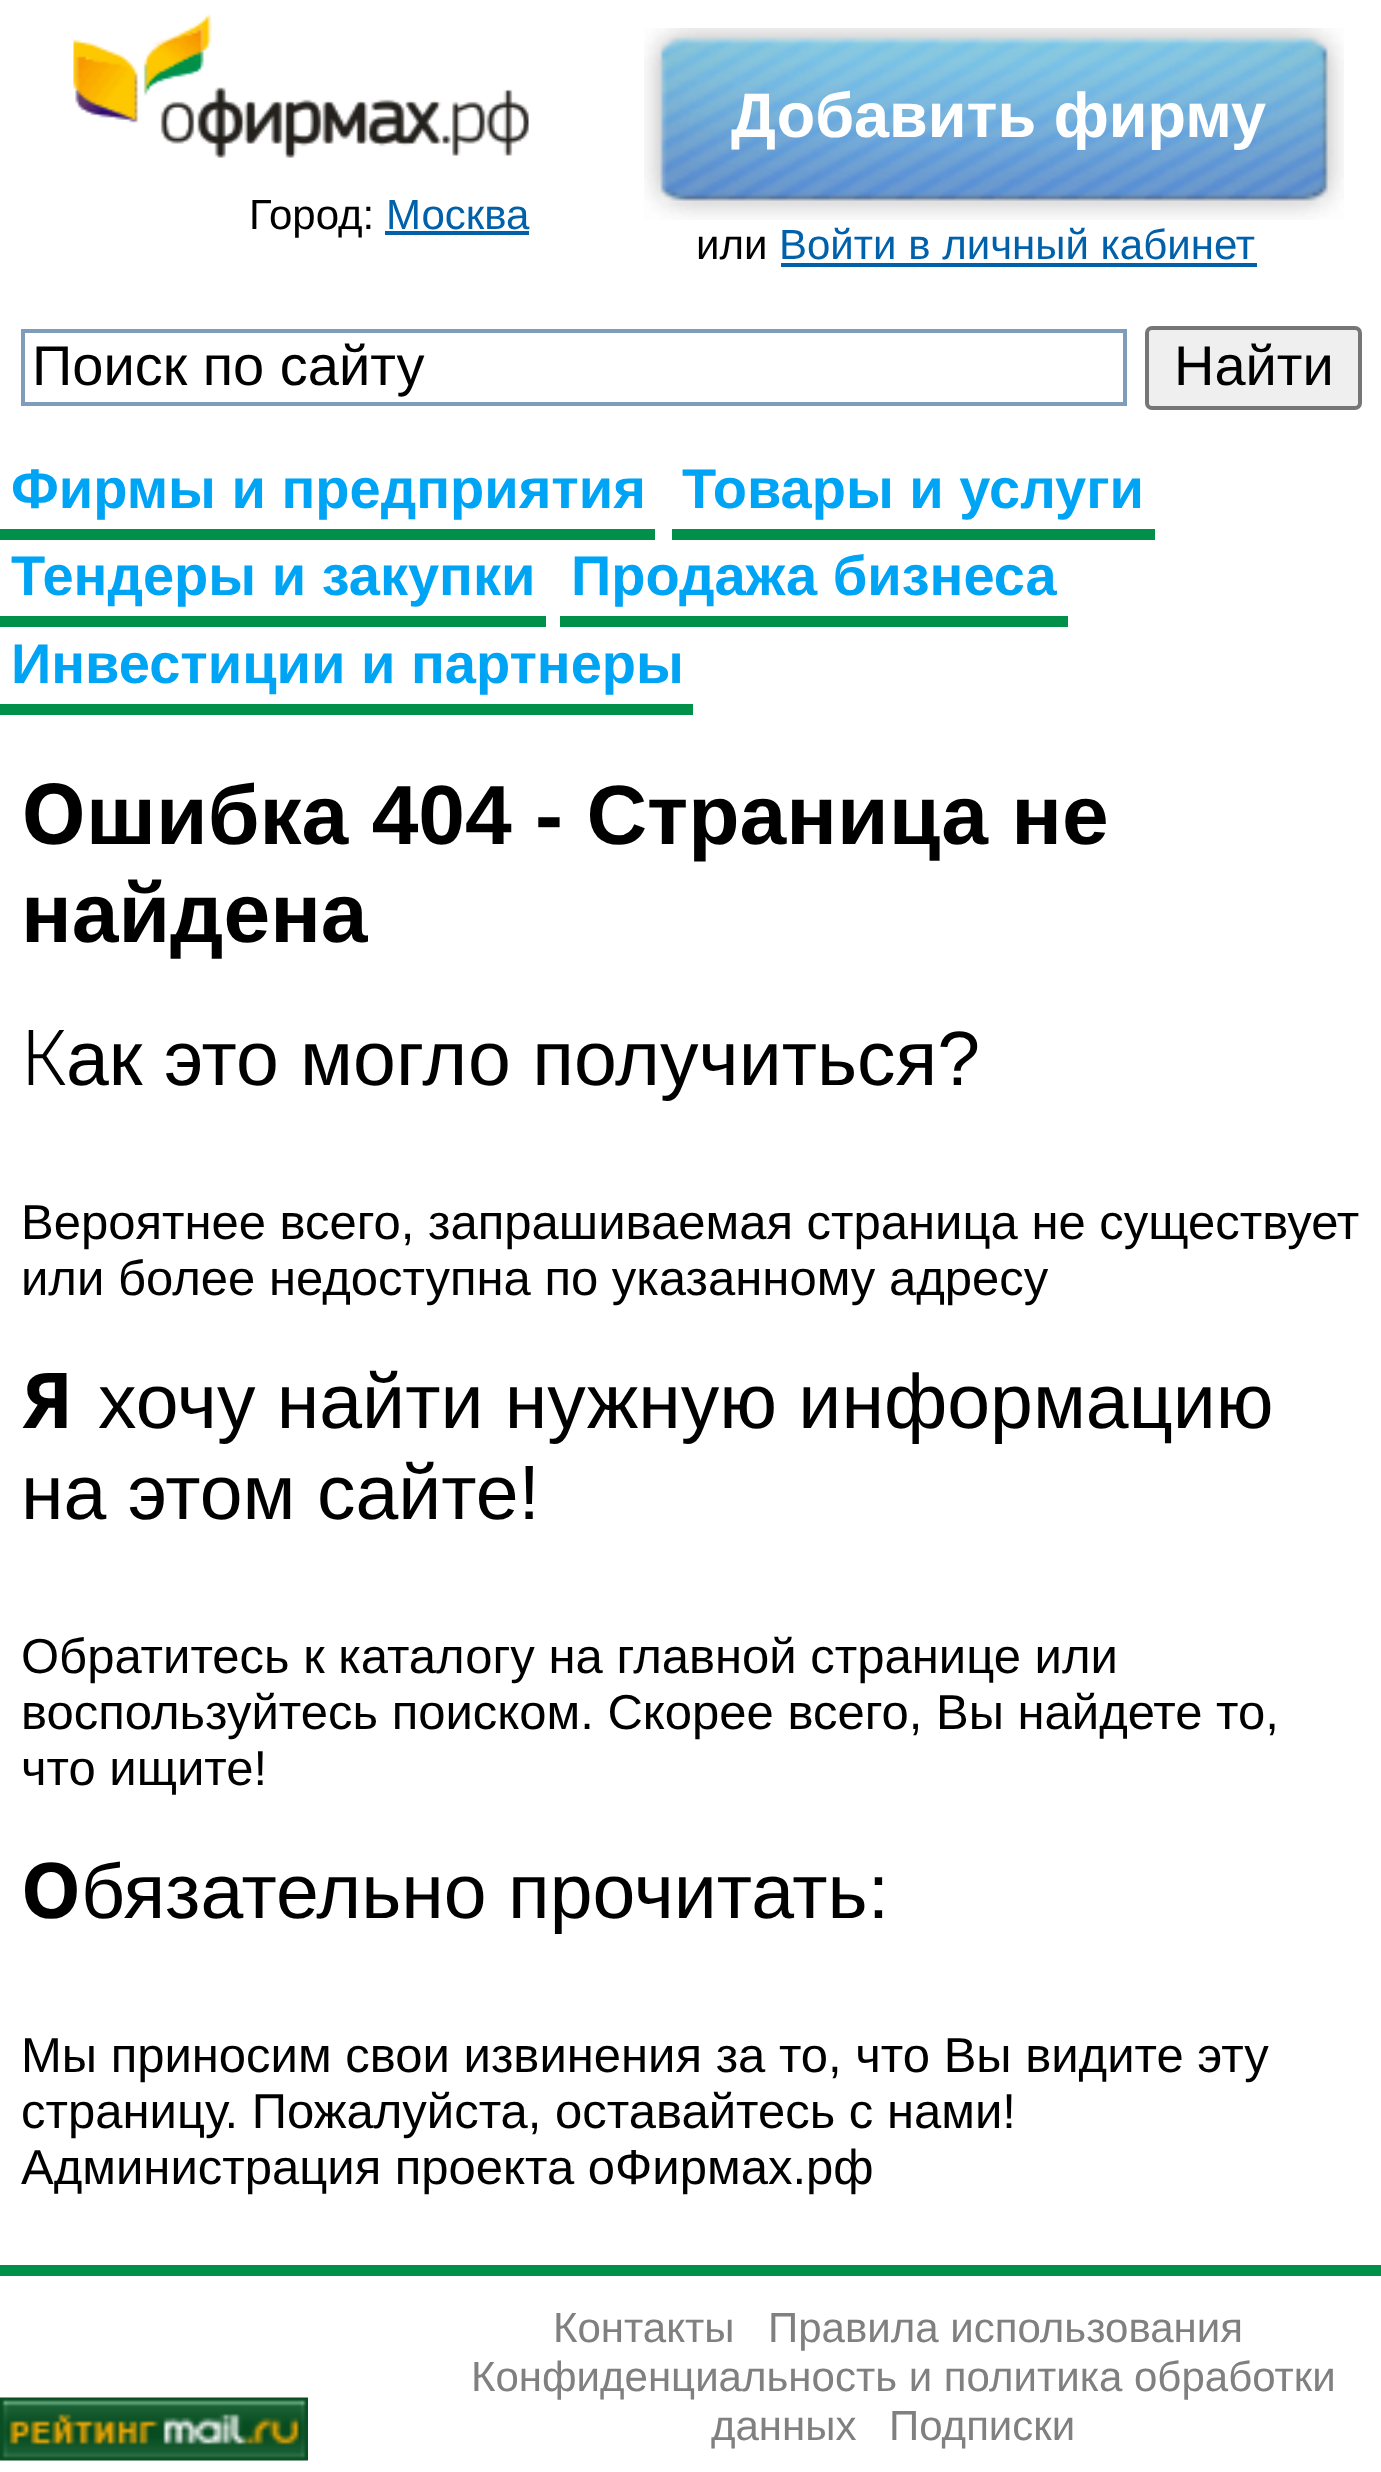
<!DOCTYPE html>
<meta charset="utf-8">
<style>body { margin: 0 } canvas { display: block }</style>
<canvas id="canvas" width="1381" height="2472"></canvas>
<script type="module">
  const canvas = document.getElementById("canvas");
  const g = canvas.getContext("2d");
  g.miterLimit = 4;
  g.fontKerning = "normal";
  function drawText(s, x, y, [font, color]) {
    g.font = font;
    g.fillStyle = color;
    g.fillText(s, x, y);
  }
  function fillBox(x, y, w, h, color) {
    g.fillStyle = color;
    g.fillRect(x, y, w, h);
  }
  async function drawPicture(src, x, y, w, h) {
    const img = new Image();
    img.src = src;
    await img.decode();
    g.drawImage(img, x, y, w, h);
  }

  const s1 = ["42px Liberation Sans", "#000000"];
  const s2 = ["42px Liberation Sans", "#0060A9"];
  const s3 = ["bold 63px Liberation Sans", "#FFFFFF"];
  const s4 = ["56px Liberation Sans", "#000000"];
  const s5 = ["bold 56px Liberation Sans", "#00A4F4"];
  const s6 = ["bold 84px Noto Sans", "#000000"];
  const s7 = ["bold 84px Liberation Sans", "#000000"];
  const s8 = ["300 77px Noto Sans", "#000000"];
  const s9 = ["77px Liberation Sans", "#000000"];
  const s10 = ["49px Liberation Sans", "#000000"];
  const s11 = ["bold 77px Noto Sans", "#000000"];
  const s12 = ["42px Liberation Sans", "#808080"];

  fillBox(0, 0, 1381, 2472, "#FFFFFF");
  await drawPicture("pic1.png", 73, 14, 456, 144);
  drawText("Город:", 249, 229, s1);
  drawText("Москва", 386, 229, s2);
  fillBox(385, 231, 144, 4, "#0060A9");
  await drawPicture("pic2.png", 644, 28, 700, 192);
  drawText("Добавить фирму", 731, 137, s3);
  drawText("или", 696, 259, s1);
  drawText("Войти в личный кабинет", 779, 259, s2);
  fillBox(781, 263, 476, 4, "#0060A9");
  g.strokeStyle = "#7F9DB9";
  g.lineWidth = 4;
  g.strokeRect(23, 331, 1102, 73);
  drawText("Поиск по сайту", 32, 385, s4);
  g.fillStyle = "#EFEFEF";
  g.beginPath();
  g.roundRect(1147, 328, 213, 80, 5);
  g.fill();
  g.strokeStyle = "#767676";
  g.stroke();
  drawText("Найти", 1174, 385, s4);
  drawText("Фирмы и предприятия", 11, 508, s5);
  fillBox(0, 529, 655, 11, "#009049");
  drawText("Товары и услуги", 682, 508, s5);
  fillBox(672, 529, 483, 11, "#009049");
  drawText("Тендеры и закупки", 11, 595, s5);
  fillBox(0, 616, 546, 11, "#009049");
  drawText("Продажа бизнеса", 571, 595, s5);
  fillBox(560, 616, 508, 11, "#009049");
  drawText("Инвестиции и партнеры", 11, 683, s5);
  fillBox(0, 704, 693, 11, "#009049");
  drawText("О", 21, 844, s6);
  drawText("шибка 404 - Страница не", 86, 844, s7);
  drawText("найдена", 21, 942, s7);
  drawText("К", 21, 1085, s8);
  drawText("ак это могло получиться?", 66, 1085, s9);
  drawText("Вероятнее всего, запрашиваемая страница не существует", 21, 1239, s10);
  drawText("или более недоступна по указанному адресу", 21, 1295, s10);
  drawText("Я", 21, 1428, s11);
  drawText("хочу найти нужную информацию", 98, 1428, s9);
  drawText("на этом сайте!", 21, 1519, s9);
  drawText("Обратитесь к каталогу на главной странице или", 21, 1673, s10);
  drawText("воспользуйтесь поиском. Скорее всего, Вы найдете то,", 21, 1729, s10);
  drawText("что ищите!", 21, 1785, s10);
  drawText("О", 21, 1918, s11);
  drawText("бязательно прочитать:", 81, 1918, s9);
  drawText("Мы приносим свои извинения за то, что Вы видите эту", 21, 2072, s10);
  drawText("страницу. Пожалуйста, оставайтесь с нами!", 21, 2128, s10);
  drawText("Администрация проекта оФирмах.рф", 21, 2184, s10);
  fillBox(0, 2265, 1381, 11, "#009049");
  await drawPicture("pic3.png", 0, 2397, 308, 64);
  drawText("Контакты", 553, 2342, s12);
  drawText("Правила использования", 768, 2342, s12);
  drawText("Конфиденциальность и политика обработки", 471, 2391, s12);
  drawText("данных", 711, 2440, s12);
  drawText("Подписки", 889, 2440, s12);
</script>
